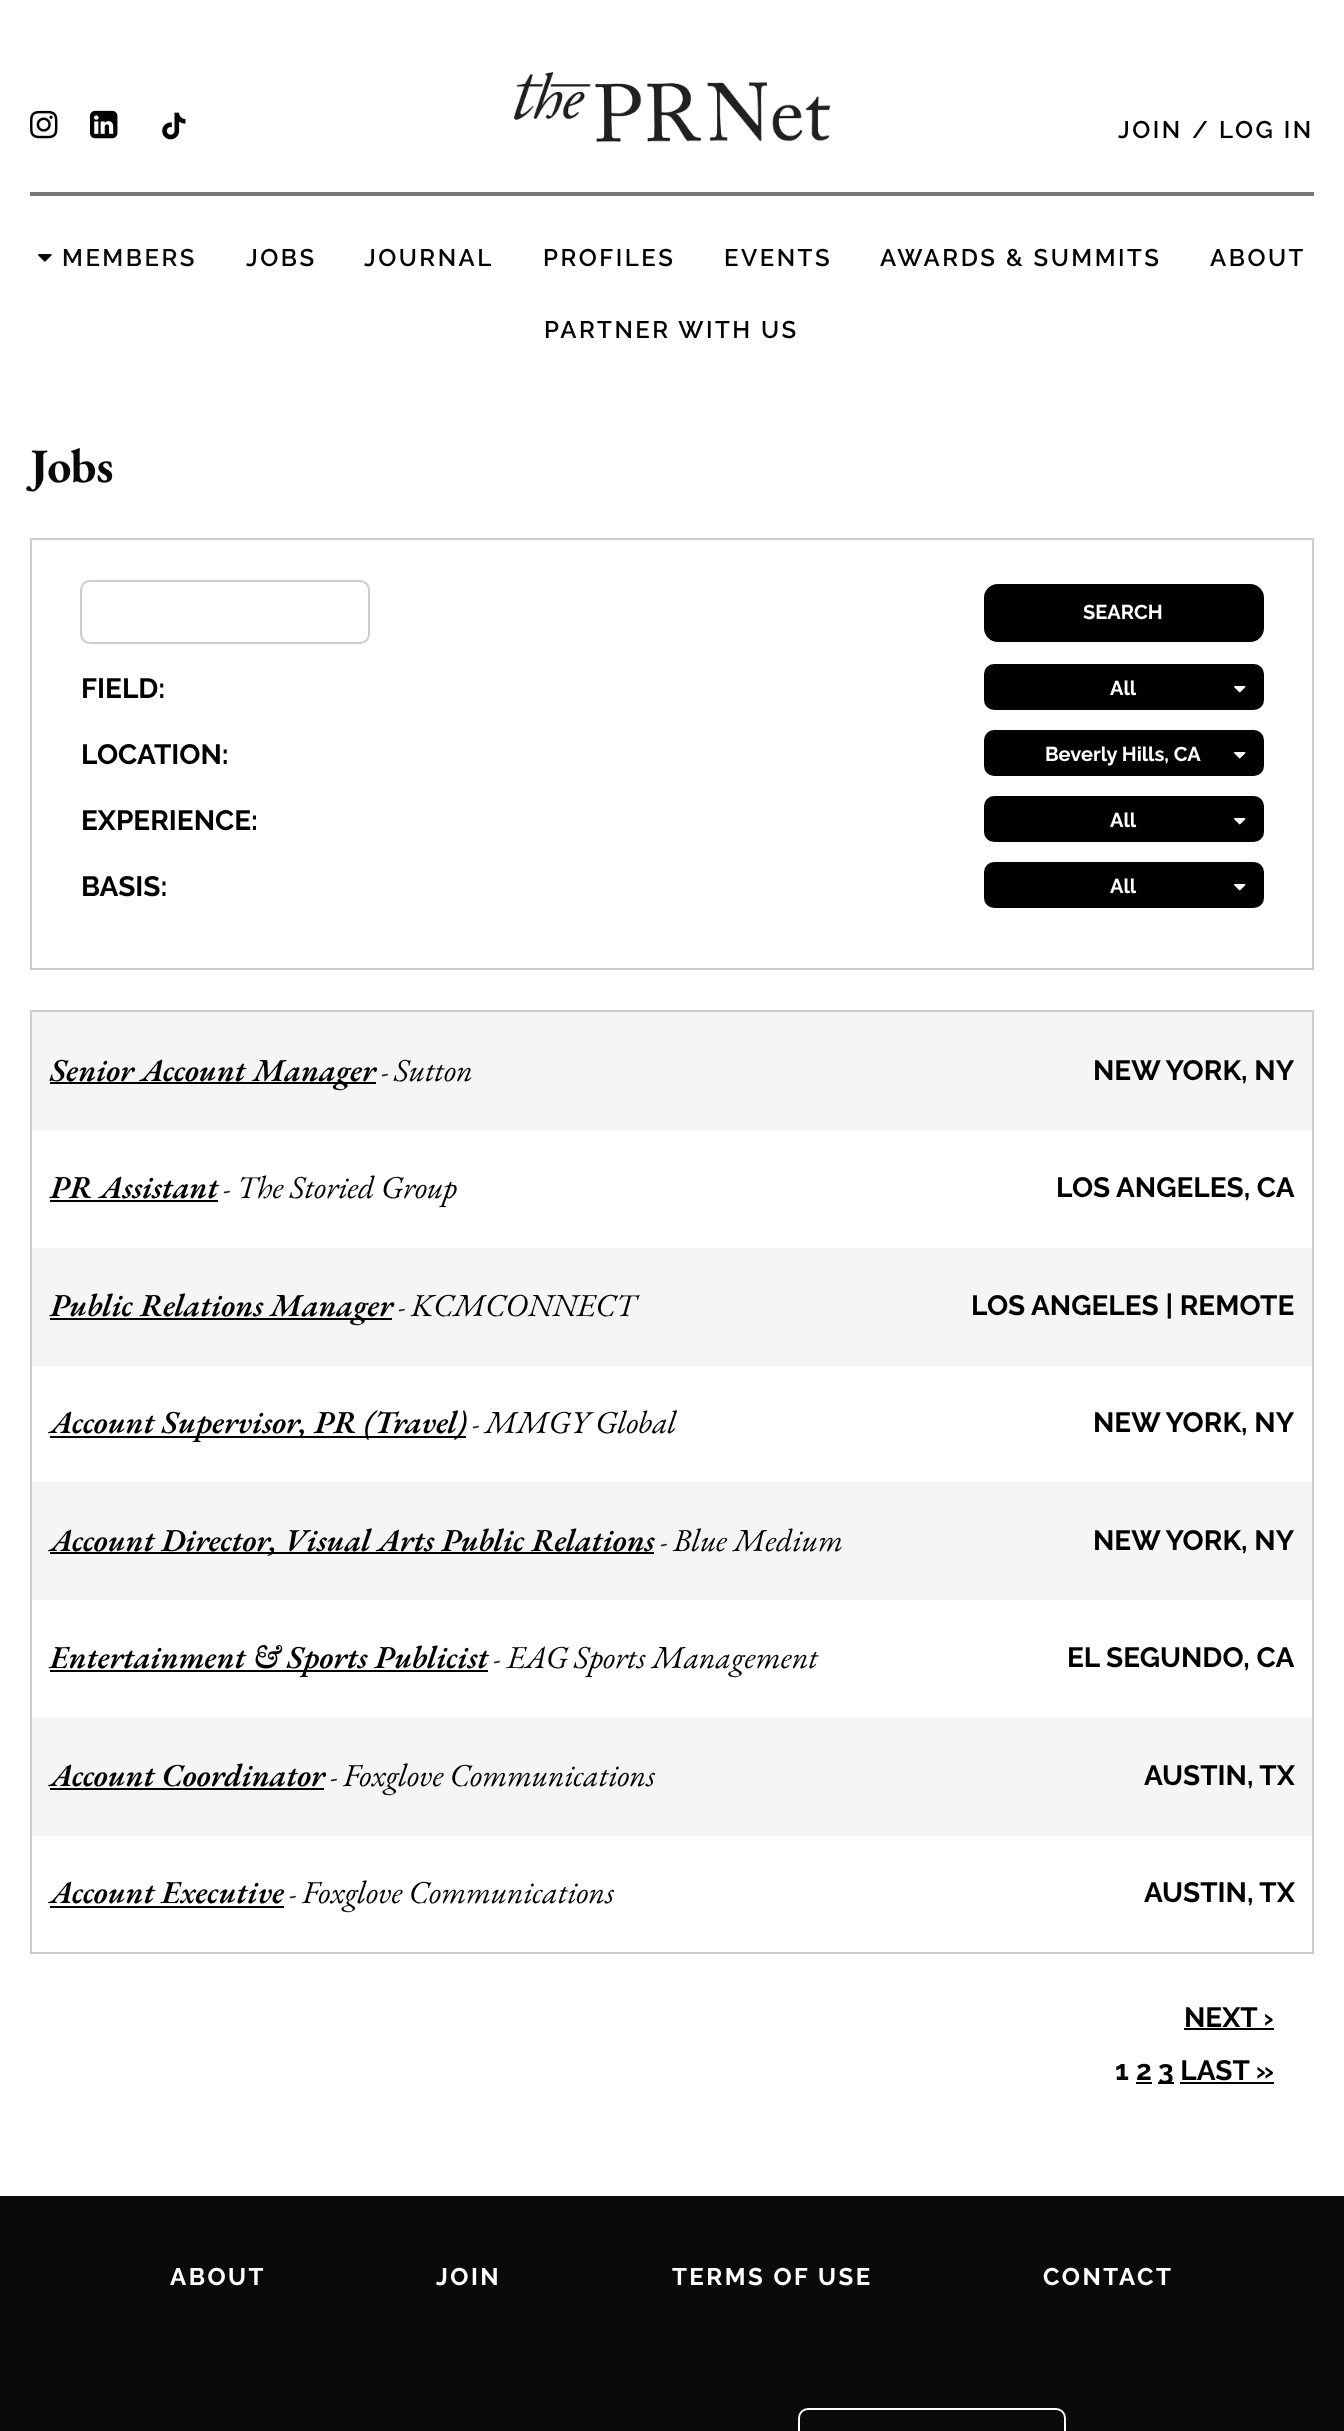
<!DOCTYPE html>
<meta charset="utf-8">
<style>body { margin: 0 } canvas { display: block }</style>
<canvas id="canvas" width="1344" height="2431"></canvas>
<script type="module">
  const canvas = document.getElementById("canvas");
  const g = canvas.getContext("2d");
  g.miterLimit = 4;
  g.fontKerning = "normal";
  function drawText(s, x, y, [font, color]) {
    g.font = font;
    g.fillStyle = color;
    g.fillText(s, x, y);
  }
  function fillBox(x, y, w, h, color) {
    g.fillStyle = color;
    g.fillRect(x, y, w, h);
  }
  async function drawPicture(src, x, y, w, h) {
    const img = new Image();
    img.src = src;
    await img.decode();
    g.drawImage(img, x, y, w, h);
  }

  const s1 = ["600 24px Raleway", "#000000"];
  const s2 = ["600 24px Raleway", "#0A0A0A"];
  const s3 = ["bold 48px EB Garamond", "#0A0A0A"];
  const s4 = ["bold 20px Raleway", "#FFFFFF"];
  const s5 = ["bold 28px Raleway", "#000000"];
  const s6 = ["italic 600 32px EB Garamond", "#000000"];
  const s7 = ["28px EB Garamond", "#222222"];
  const s8 = ["italic 32px EB Garamond", "#000000"];
  const s9 = ["bold 28px Raleway", "#0A0A0A"];
  const s10 = ["bold 24px Raleway", "#FFFFFF"];

  fillBox(0, 0, 1344, 2431, "#FFFFFF");
  await drawPicture("pic1.png", 30, 110, 28, 29);
  await drawPicture("pic2.png", 90, 110, 28, 29);
  await drawPicture("pic3.png", 162, 112, 24, 28);
  await drawPicture("pic4.png", 514, 72, 316, 70);
  g.letterSpacing = "2.5px";
  drawText("JOIN", 1118, 138, s1);
  drawText("/", 1192, 138, s2);
  drawText("LOG IN", 1219, 138, s1);
  fillBox(30, 192, 1284, 4, "#777777");
  await drawPicture("pic5.png", 38, 254, 14, 8);
  drawText("MEMBERS", 62, 266, s2);
  drawText("JOBS", 246, 266, s1);
  drawText("JOURNAL", 364, 266, s1);
  drawText("PROFILES", 543, 266, s1);
  drawText("EVENTS", 724, 266, s1);
  drawText("AWARDS & SUMMITS", 880, 266, s1);
  drawText("ABOUT", 1210, 266, s1);
  drawText("PARTNER WITH US", 544, 338, s1);
  g.letterSpacing = "0px";
  drawText("Jobs", 30, 482, s3);
  g.strokeStyle = "#CBCBCB";
  g.lineWidth = 2;
  g.strokeRect(31, 539, 1282, 430);
  g.beginPath();
  g.roundRect(81, 581, 288, 62, 9);
  g.strokeStyle = "#CCCCCC";
  g.stroke();
  g.fillStyle = "#000000";
  g.beginPath();
  g.roundRect(985, 585, 278, 56, 13);
  g.fill();
  g.strokeStyle = "#000000";
  g.stroke();
  drawText("SEARCH", 1083, 619, s4);
  drawText("FIELD:", 81, 698, s5);
  g.beginPath();
  g.roundRect(985, 665, 278, 44, 9);
  g.fill();
  g.stroke();
  drawText("All", 1110, 695, s4);
  await drawPicture("pic6.png", 1234, 686, 12, 7);
  drawText("LOCATION:", 81, 764, s5);
  g.beginPath();
  g.roundRect(985, 731, 278, 44, 9);
  g.fill();
  g.stroke();
  drawText("Beverly Hills, CA", 1045, 761, s4);
  await drawPicture("pic6.png", 1234, 752, 12, 7);
  drawText("EXPERIENCE:", 81, 830, s5);
  g.beginPath();
  g.roundRect(985, 797, 278, 44, 9);
  g.fill();
  g.stroke();
  drawText("All", 1110, 827, s4);
  await drawPicture("pic6.png", 1234, 818, 12, 7);
  drawText("BASIS:", 81, 896, s5);
  g.beginPath();
  g.roundRect(985, 863, 278, 44, 9);
  g.fill();
  g.stroke();
  drawText("All", 1110, 893, s4);
  await drawPicture("pic6.png", 1234, 884, 12, 7);
  fillBox(30, 1010, 1284, 2, "#CBCBCB");
  fillBox(1312, 1010, 2, 944, "#CBCBCB");
  fillBox(30, 1952, 1284, 2, "#CBCBCB");
  fillBox(30, 1010, 2, 944, "#CBCBCB");
  fillBox(32, 1012, 1280, 118, "#F5F5F5");
  fillBox(50, 1082, 326, 2, "#000000");
  drawText("Senior Account Manager", 50, 1081, s6);
  drawText("-", 381, 1081, s7);
  drawText("Sutton", 394, 1081, s8);
  drawText("NEW YORK, NY", 1093, 1080, s5);
  drawText("PR Assistant", 50, 1198, s6);
  fillBox(50, 1200, 168, 2, "#000000");
  drawText("-", 223, 1198, s7);
  drawText("The Storied Group", 237, 1198, s8);
  drawText("LOS ANGELES, CA", 1056, 1197, s5);
  fillBox(32, 1248, 1280, 118, "#F5F5F5");
  fillBox(50, 1318, 342, 2, "#000000");
  drawText("Public Relations Manager", 50, 1316, s6);
  drawText("-", 398, 1316, s7);
  drawText("KCMCONNECT", 411, 1316, s8);
  drawText("LOS ANGELES | REMOTE", 971, 1315, s5);
  fillBox(50, 1436, 416, 2, "#000000");
  drawText("Account Supervisor, PR (Travel)", 50, 1433, s6);
  drawText("-", 472, 1433, s7);
  drawText("MMGY Global", 485, 1433, s8);
  drawText("NEW YORK, NY", 1093, 1432, s5);
  fillBox(32, 1482, 1280, 118, "#F5F5F5");
  fillBox(50, 1552, 604, 2, "#000000");
  drawText("Account Director, Visual Arts Public Relations", 50, 1551, s6);
  drawText("-", 660, 1551, s7);
  drawText("Blue Medium", 673, 1551, s8);
  drawText("NEW YORK, NY", 1093, 1550, s5);
  fillBox(50, 1670, 438, 2, "#000000");
  drawText("Entertainment & Sports Publicist", 50, 1668, s6);
  drawText("-", 493, 1668, s7);
  drawText("EAG Sports Management", 507, 1668, s8);
  drawText("EL SEGUNDO, CA", 1067, 1667, s5);
  fillBox(32, 1718, 1280, 118, "#F5F5F5");
  drawText("Account Coordinator", 50, 1786, s6);
  fillBox(50, 1788, 274, 2, "#000000");
  drawText("-", 330, 1786, s7);
  drawText("Foxglove Communications", 343, 1786, s8);
  drawText("AUSTIN, TX", 1144, 1785, s5);
  drawText("Account Executive", 50, 1903, s6);
  fillBox(50, 1906, 234, 2, "#000000");
  drawText("-", 289, 1903, s7);
  drawText("Foxglove Communications", 302, 1903, s8);
  drawText("AUSTIN, TX", 1144, 1902, s5);
  drawText("NEXT ›", 1184, 2027, s5);
  fillBox(1184, 2028, 90, 2, "#000000");
  drawText("1", 1115, 2080, s9);
  drawText("2", 1136, 2080, s5);
  fillBox(1136, 2082, 16, 2, "#000000");
  fillBox(1158, 2082, 16, 2, "#000000");
  drawText("3 LAST »", 1158, 2080, s5);
  fillBox(1180, 2082, 94, 2, "#000000");
  fillBox(0, 2196, 1344, 235, "#0A0A0A");
  g.letterSpacing = "2.5px";
  drawText("ABOUT", 170, 2285, s10);
  drawText("JOIN", 436, 2285, s10);
  drawText("TERMS OF USE", 672, 2285, s10);
  drawText("CONTACT", 1043, 2285, s10);
  g.beginPath();
  g.roundRect(799, 2409, 266, 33, 9);
  g.strokeStyle = "#FFFFFF";
  g.stroke();
</script>
